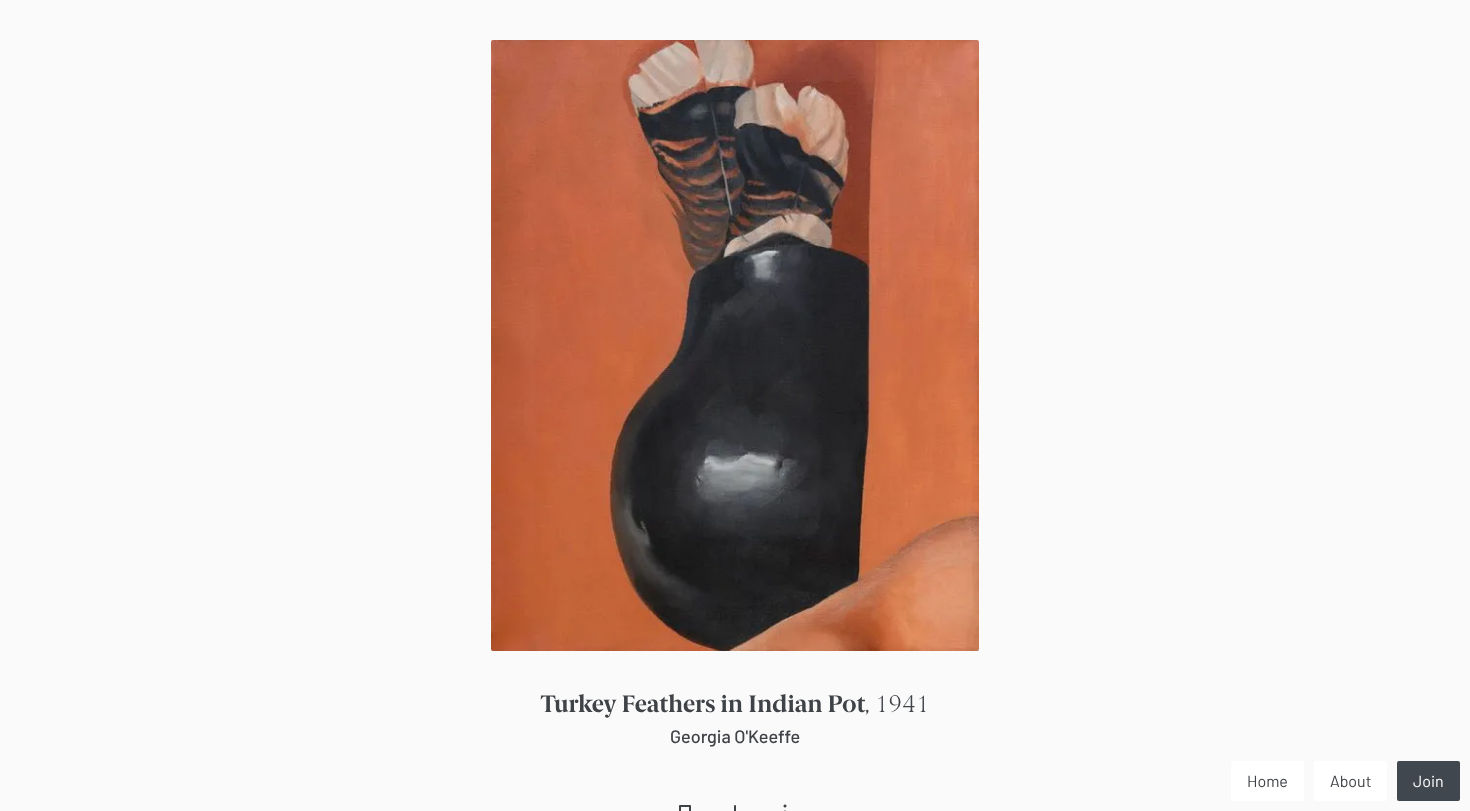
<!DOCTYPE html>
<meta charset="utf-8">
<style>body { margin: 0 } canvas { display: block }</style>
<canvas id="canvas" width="1470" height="811"></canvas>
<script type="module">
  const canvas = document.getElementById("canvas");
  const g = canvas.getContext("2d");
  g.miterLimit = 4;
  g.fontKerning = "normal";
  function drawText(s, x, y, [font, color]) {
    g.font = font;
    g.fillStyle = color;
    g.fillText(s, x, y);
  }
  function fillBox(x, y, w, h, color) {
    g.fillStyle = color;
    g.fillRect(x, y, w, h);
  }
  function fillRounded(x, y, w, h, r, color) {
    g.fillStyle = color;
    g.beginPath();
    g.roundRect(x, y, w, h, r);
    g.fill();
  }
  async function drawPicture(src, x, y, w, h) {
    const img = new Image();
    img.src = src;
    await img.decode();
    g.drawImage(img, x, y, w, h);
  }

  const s1 = ["bold 24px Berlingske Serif", "#3F4246"];
  const s2 = ["300 24px Berlingske Serif", "#3F4246"];
  const s3 = ["500 18px Barlow", "#3F4246"];
  const s4 = ["16px Barlow", "#3F4246"];
  const s5 = ["16px Barlow", "#FFFFFF"];

  fillBox(0, 0, 1470, 811, "#FAFAFA");
  await drawPicture("pic1.png", 491, 40, 488, 611);
  drawText("Turkey Feathers in Indian Pot", 540, 712, s1);
  drawText(", 1941", 865, 712, s2);
  drawText("Georgia O'Keeffe", 670, 743, s3);
  await drawPicture("pic2.png", 679, 805, 12, 6);
  await drawPicture("pic3.png", 734, 805, 2, 6);
  await drawPicture("pic4.png", 783, 804, 4, 7);
  fillRounded(1231, 761, 73, 40, 2, "#FFFFFF");
  drawText("Home", 1247, 787, s4);
  fillRounded(1314, 761, 73, 40, 2, "#FFFFFF");
  drawText("About", 1330, 787, s4);
  fillRounded(1397, 761, 63, 40, 2, "#40474F");
  drawText("Join", 1413, 787, s5);
</script>
